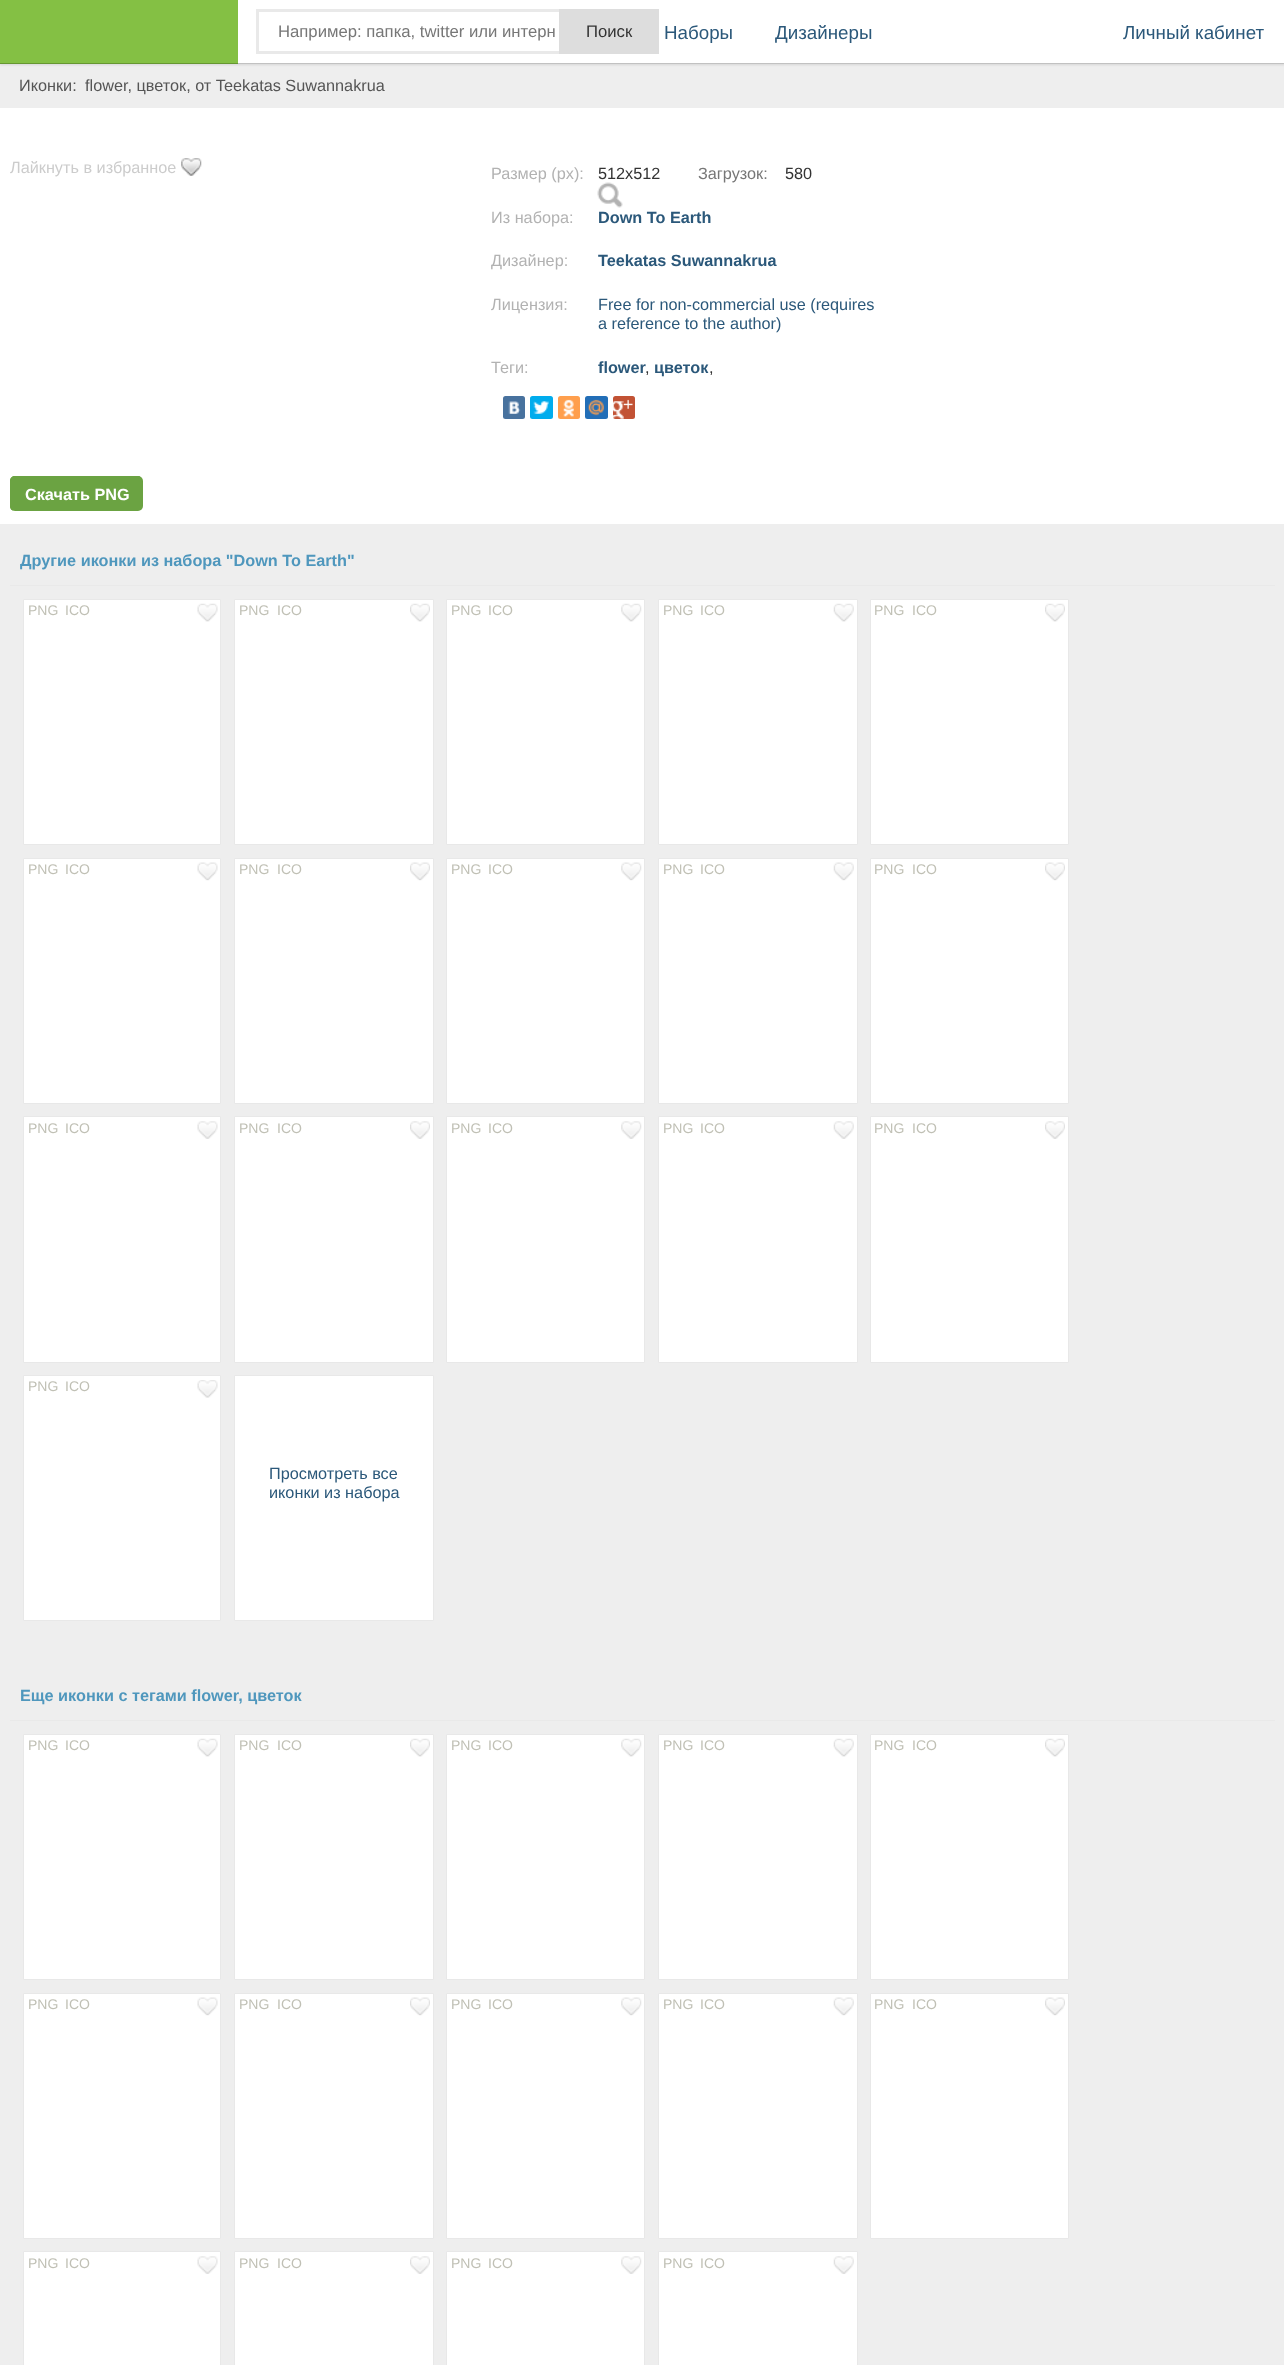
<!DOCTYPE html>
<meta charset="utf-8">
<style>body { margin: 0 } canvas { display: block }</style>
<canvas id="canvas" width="1284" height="2365"></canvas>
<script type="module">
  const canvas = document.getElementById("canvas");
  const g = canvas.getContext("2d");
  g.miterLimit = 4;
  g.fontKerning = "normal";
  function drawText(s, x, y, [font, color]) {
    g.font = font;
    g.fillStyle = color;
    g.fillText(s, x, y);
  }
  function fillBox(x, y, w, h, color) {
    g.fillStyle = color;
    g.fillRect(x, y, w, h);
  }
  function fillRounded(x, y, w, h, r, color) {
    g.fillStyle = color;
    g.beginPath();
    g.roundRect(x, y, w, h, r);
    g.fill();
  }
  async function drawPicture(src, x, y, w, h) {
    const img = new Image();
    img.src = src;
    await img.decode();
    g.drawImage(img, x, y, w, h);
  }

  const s1 = ["16.7px Liberation Sans", "#777777"];
  const s2 = ["16.7px Liberation Sans", "#333333"];
  const s3 = ["18.75px Liberation Sans", "#2B587A"];
  const s4 = ["16.25px Liberation Sans", "#555555"];
  const s5 = ["16.25px Liberation Sans", "#CCCCCC"];
  const s6 = ["bold 16.25px Liberation Sans", "#FFFFFF"];
  const s7 = ["16.25px Liberation Sans", "#B2B2B2"];
  const s8 = ["16.25px Liberation Sans", "#333333"];
  const s9 = ["16.25px Liberation Sans", "#777777"];
  const s10 = ["bold 16.25px Liberation Sans", "#2B587A"];
  const s11 = ["16.25px Liberation Sans", "#2B587A"];
  const s12 = ["bold 16.25px Liberation Sans", "#4F97BD"];
  const s13 = ["14px Liberation Sans", "#C0C0B5"];

  fillBox(0, 0, 1284, 2365, "#EEEEEE");
  fillBox(238, 63, 1046, 1, "#D6D6D6");
  g.fillStyle = "rgba(0, 0, 0, 0.1)";
  g.filter = "blur(1px)";
  g.beginPath();
  g.rect(0, 3, 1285, 62);
  g.fill();
  g.filter = "none";
  fillBox(238, 0, 1046, 63, "#FFFFFF");
  fillBox(0, 0, 238, 63, "#84C044");
  fillBox(0, 63, 238, 1, "#669731");
  g.strokeStyle = "#E9E9E9";
  g.lineWidth = 3;
  g.strokeRect(257.5, 10.5, 362, 42);
  drawText("Например: папка, twitter или интерн", 278, 37, s1);
  fillBox(559, 9, 100, 45, "#DDDDDD");
  drawText("Поиск", 586, 37, s2);
  drawText("Наборы", 664, 39, s3);
  drawText("Дизайнеры", 775, 39, s3);
  drawText("Личный кабинет", 1123, 39, s3);
  drawText("Иконки:", 19, 91, s4);
  drawText("flower, цветок, от Teekatas Suwannakrua", 85, 91, s4);
  fillBox(0, 108, 1284, 416, "#FFFFFF");
  await drawPicture("pic1.png", 181, 158, 21, 18);
  drawText("Лайкнуть в избранное", 10, 173, s5);
  await drawPicture("pic2.png", 597, 182, 26, 26);
  fillRounded(10, 476, 133, 35, 5, "#6BA342");
  g.beginPath();
  g.moveTo(15, 476);
  g.lineTo(138, 476);
  g.bezierCurveTo(140, 476, 142, 478, 142, 481);
  g.lineTo(142, 506);
  g.bezierCurveTo(142, 509, 140, 511, 138, 511);
  g.lineTo(15, 511);
  g.bezierCurveTo(12, 511, 10, 509, 10, 506);
  g.lineTo(10, 481);
  g.bezierCurveTo(10, 478, 12, 476, 15, 476);
  g.closePath();
  g.moveTo(15, 478);
  g.lineTo(138, 478);
  g.bezierCurveTo(140, 478, 142, 479, 142, 481);
  g.lineTo(142, 506);
  g.bezierCurveTo(142, 509, 140, 511, 138, 511);
  g.lineTo(15, 511);
  g.bezierCurveTo(13, 511, 11, 509, 11, 506);
  g.lineTo(11, 481);
  g.bezierCurveTo(11, 479, 13, 478, 15, 478);
  g.closePath();
  g.fill("evenodd");
  drawText("Скачать PNG", 25, 500, s6);
  drawText("Размер (px):", 491, 179, s7);
  drawText("512x512", 598, 179, s8);
  drawText("Загрузок:", 698, 179, s9);
  drawText("580", 785, 179, s8);
  drawText("Из набора:", 491, 223, s7);
  drawText("Down To Earth", 598, 223, s10);
  drawText("Дизайнер:", 491, 266, s7);
  drawText("Teekatas Suwannakrua", 598, 266, s10);
  drawText("Лицензия:", 491, 310, s7);
  drawText("Free for non-commercial use (requires", 598, 310, s11);
  drawText("a reference to the author)", 598, 329, s11);
  drawText("Теги:", 491, 373, s7);
  drawText("flower", 598, 373, s10);
  drawText(",", 645, 373, s8);
  drawText("цветок", 654, 373, s10);
  drawText(",", 709, 373, s8);
  fillRounded(503, 396, 22, 23, 2.5, "#48729E");
  await drawPicture("pic3.png", 508, 401, 13, 13);
  fillRounded(530, 396, 23, 23, 2.5, "#00ACED");
  await drawPicture("pic4.png", 533, 401, 16, 13);
  fillRounded(558, 396, 22, 23, 2.5, "#FF9F4D");
  await drawPicture("pic5.png", 563, 399, 11, 18);
  fillRounded(585, 396, 23, 23, 2.5, "#226EB7");
  await drawPicture("pic6.png", 588, 399, 16, 17);
  fillRounded(613, 396, 22, 23, 2.5, "#C25234");
  await drawPicture("pic7.png", 613, 399, 20, 20);
  fillBox(10, 585, 1265, 1, "#E9E9E9");
  drawText("Другие иконки из набора \"Down To Earth\"", 20, 566, s12);
  g.fillStyle = "#FFFFFF";
  g.beginPath();
  g.rect(23.5, 599.5, 197, 245);
  g.fill();
  g.strokeStyle = "#E8E8E8";
  g.lineWidth = 1;
  g.stroke();
  drawText("PNG", 28, 615, s13);
  drawText("ICO", 65, 615, s13);
  await drawPicture("pic8.png", 197, 603, 21, 19);
  g.fillStyle = "#FFFFFF";
  g.beginPath();
  g.rect(234.5, 599.5, 199, 245);
  g.fill();
  g.stroke();
  drawText("PNG", 239, 615, s13);
  drawText("ICO", 277, 615, s13);
  await drawPicture("pic9.png", 410, 603, 20, 19);
  g.fillStyle = "#FFFFFF";
  g.beginPath();
  g.rect(446.5, 599.5, 198, 245);
  g.fill();
  g.stroke();
  drawText("PNG", 451, 615, s13);
  drawText("ICO", 488, 615, s13);
  await drawPicture("pic10.png", 621, 603, 21, 19);
  g.fillStyle = "#FFFFFF";
  g.beginPath();
  g.rect(658.5, 599.5, 199, 245);
  g.fill();
  g.stroke();
  drawText("PNG", 663, 615, s13);
  drawText("ICO", 700, 615, s13);
  await drawPicture("pic11.png", 833, 603, 21, 19);
  g.fillStyle = "#FFFFFF";
  g.beginPath();
  g.rect(870.5, 599.5, 198, 245);
  g.fill();
  g.stroke();
  drawText("PNG", 874, 615, s13);
  drawText("ICO", 912, 615, s13);
  await drawPicture("pic12.png", 1045, 603, 20, 19);
  g.fillStyle = "#FFFFFF";
  g.beginPath();
  g.rect(23.5, 858.5, 197, 245);
  g.fill();
  g.stroke();
  drawText("PNG", 28, 874, s13);
  drawText("ICO", 65, 874, s13);
  await drawPicture("pic13.png", 197, 862, 21, 19);
  g.fillStyle = "#FFFFFF";
  g.beginPath();
  g.rect(234.5, 858.5, 199, 245);
  g.fill();
  g.stroke();
  drawText("PNG", 239, 874, s13);
  drawText("ICO", 277, 874, s13);
  await drawPicture("pic14.png", 410, 862, 20, 19);
  g.fillStyle = "#FFFFFF";
  g.beginPath();
  g.rect(446.5, 858.5, 198, 245);
  g.fill();
  g.stroke();
  drawText("PNG", 451, 874, s13);
  drawText("ICO", 488, 874, s13);
  await drawPicture("pic15.png", 621, 862, 21, 19);
  g.fillStyle = "#FFFFFF";
  g.beginPath();
  g.rect(658.5, 858.5, 199, 245);
  g.fill();
  g.stroke();
  drawText("PNG", 663, 874, s13);
  drawText("ICO", 700, 874, s13);
  await drawPicture("pic16.png", 833, 862, 21, 19);
  g.fillStyle = "#FFFFFF";
  g.beginPath();
  g.rect(870.5, 858.5, 198, 245);
  g.fill();
  g.stroke();
  drawText("PNG", 874, 874, s13);
  drawText("ICO", 912, 874, s13);
  await drawPicture("pic17.png", 1045, 862, 20, 19);
  g.fillStyle = "#FFFFFF";
  g.beginPath();
  g.rect(23.5, 1116.5, 197, 246);
  g.fill();
  g.stroke();
  drawText("PNG", 28, 1133, s13);
  drawText("ICO", 65, 1133, s13);
  await drawPicture("pic18.png", 197, 1121, 21, 18);
  g.fillStyle = "#FFFFFF";
  g.beginPath();
  g.rect(234.5, 1116.5, 199, 246);
  g.fill();
  g.stroke();
  drawText("PNG", 239, 1133, s13);
  drawText("ICO", 277, 1133, s13);
  await drawPicture("pic19.png", 410, 1121, 20, 18);
  g.fillStyle = "#FFFFFF";
  g.beginPath();
  g.rect(446.5, 1116.5, 198, 246);
  g.fill();
  g.stroke();
  drawText("PNG", 451, 1133, s13);
  drawText("ICO", 488, 1133, s13);
  await drawPicture("pic20.png", 621, 1121, 21, 18);
  g.fillStyle = "#FFFFFF";
  g.beginPath();
  g.rect(658.5, 1116.5, 199, 246);
  g.fill();
  g.stroke();
  drawText("PNG", 663, 1133, s13);
  drawText("ICO", 700, 1133, s13);
  await drawPicture("pic21.png", 833, 1121, 21, 18);
  g.fillStyle = "#FFFFFF";
  g.beginPath();
  g.rect(870.5, 1116.5, 198, 246);
  g.fill();
  g.stroke();
  drawText("PNG", 874, 1133, s13);
  drawText("ICO", 912, 1133, s13);
  await drawPicture("pic22.png", 1045, 1121, 20, 18);
  g.fillStyle = "#FFFFFF";
  g.beginPath();
  g.rect(23.5, 1375.5, 197, 245);
  g.fill();
  g.stroke();
  drawText("PNG", 28, 1391, s13);
  drawText("ICO", 65, 1391, s13);
  await drawPicture("pic23.png", 197, 1380, 21, 18);
  g.fillStyle = "#FFFFFF";
  g.beginPath();
  g.rect(234.5, 1375.5, 199, 245);
  g.fill();
  g.stroke();
  drawText("Просмотреть все", 269, 1479, s11);
  drawText("иконки из набора", 269, 1498, s11);
  fillBox(10, 1720, 1265, 1, "#E9E9E9");
  drawText("Еще иконки с тегами flower, цветок", 20, 1701, s12);
  g.fillStyle = "#FFFFFF";
  g.beginPath();
  g.rect(23.5, 1734.5, 197, 245);
  g.fill();
  g.stroke();
  drawText("PNG", 28, 1750, s13);
  drawText("ICO", 65, 1750, s13);
  await drawPicture("pic8.png", 197, 1738, 21, 19);
  g.fillStyle = "#FFFFFF";
  g.beginPath();
  g.rect(234.5, 1734.5, 199, 245);
  g.fill();
  g.stroke();
  drawText("PNG", 239, 1750, s13);
  drawText("ICO", 277, 1750, s13);
  await drawPicture("pic9.png", 410, 1738, 20, 19);
  g.fillStyle = "#FFFFFF";
  g.beginPath();
  g.rect(446.5, 1734.5, 198, 245);
  g.fill();
  g.stroke();
  drawText("PNG", 451, 1750, s13);
  drawText("ICO", 488, 1750, s13);
  await drawPicture("pic10.png", 621, 1738, 21, 19);
  g.fillStyle = "#FFFFFF";
  g.beginPath();
  g.rect(658.5, 1734.5, 199, 245);
  g.fill();
  g.stroke();
  drawText("PNG", 663, 1750, s13);
  drawText("ICO", 700, 1750, s13);
  await drawPicture("pic11.png", 833, 1738, 21, 19);
  g.fillStyle = "#FFFFFF";
  g.beginPath();
  g.rect(870.5, 1734.5, 198, 245);
  g.fill();
  g.stroke();
  drawText("PNG", 874, 1750, s13);
  drawText("ICO", 912, 1750, s13);
  await drawPicture("pic12.png", 1045, 1738, 20, 19);
  g.fillStyle = "#FFFFFF";
  g.beginPath();
  g.rect(23.5, 1993.5, 197, 245);
  g.fill();
  g.stroke();
  drawText("PNG", 28, 2009, s13);
  drawText("ICO", 65, 2009, s13);
  await drawPicture("pic13.png", 197, 1997, 21, 19);
  g.fillStyle = "#FFFFFF";
  g.beginPath();
  g.rect(234.5, 1993.5, 199, 245);
  g.fill();
  g.stroke();
  drawText("PNG", 239, 2009, s13);
  drawText("ICO", 277, 2009, s13);
  await drawPicture("pic14.png", 410, 1997, 20, 19);
  g.fillStyle = "#FFFFFF";
  g.beginPath();
  g.rect(446.5, 1993.5, 198, 245);
  g.fill();
  g.stroke();
  drawText("PNG", 451, 2009, s13);
  drawText("ICO", 488, 2009, s13);
  await drawPicture("pic15.png", 621, 1997, 21, 19);
  g.fillStyle = "#FFFFFF";
  g.beginPath();
  g.rect(658.5, 1993.5, 199, 245);
  g.fill();
  g.stroke();
  drawText("PNG", 663, 2009, s13);
  drawText("ICO", 700, 2009, s13);
  await drawPicture("pic16.png", 833, 1997, 21, 19);
  g.fillStyle = "#FFFFFF";
  g.beginPath();
  g.rect(870.5, 1993.5, 198, 245);
  g.fill();
  g.stroke();
  drawText("PNG", 874, 2009, s13);
  drawText("ICO", 912, 2009, s13);
  await drawPicture("pic17.png", 1045, 1997, 20, 19);
  g.fillStyle = "#FFFFFF";
  g.beginPath();
  g.rect(23.5, 2251.5, 197, 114);
  g.fill();
  g.stroke();
  drawText("PNG", 28, 2268, s13);
  drawText("ICO", 65, 2268, s13);
  await drawPicture("pic18.png", 197, 2256, 21, 18);
  g.fillStyle = "#FFFFFF";
  g.beginPath();
  g.rect(234.5, 2251.5, 199, 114);
  g.fill();
  g.stroke();
  drawText("PNG", 239, 2268, s13);
  drawText("ICO", 277, 2268, s13);
  await drawPicture("pic19.png", 410, 2256, 20, 18);
  g.fillStyle = "#FFFFFF";
  g.beginPath();
  g.rect(446.5, 2251.5, 198, 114);
  g.fill();
  g.stroke();
  drawText("PNG", 451, 2268, s13);
  drawText("ICO", 488, 2268, s13);
  await drawPicture("pic20.png", 621, 2256, 21, 18);
  g.fillStyle = "#FFFFFF";
  g.beginPath();
  g.rect(658.5, 2251.5, 199, 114);
  g.fill();
  g.stroke();
  drawText("PNG", 663, 2268, s13);
  drawText("ICO", 700, 2268, s13);
  await drawPicture("pic21.png", 833, 2256, 21, 18);
</script>
